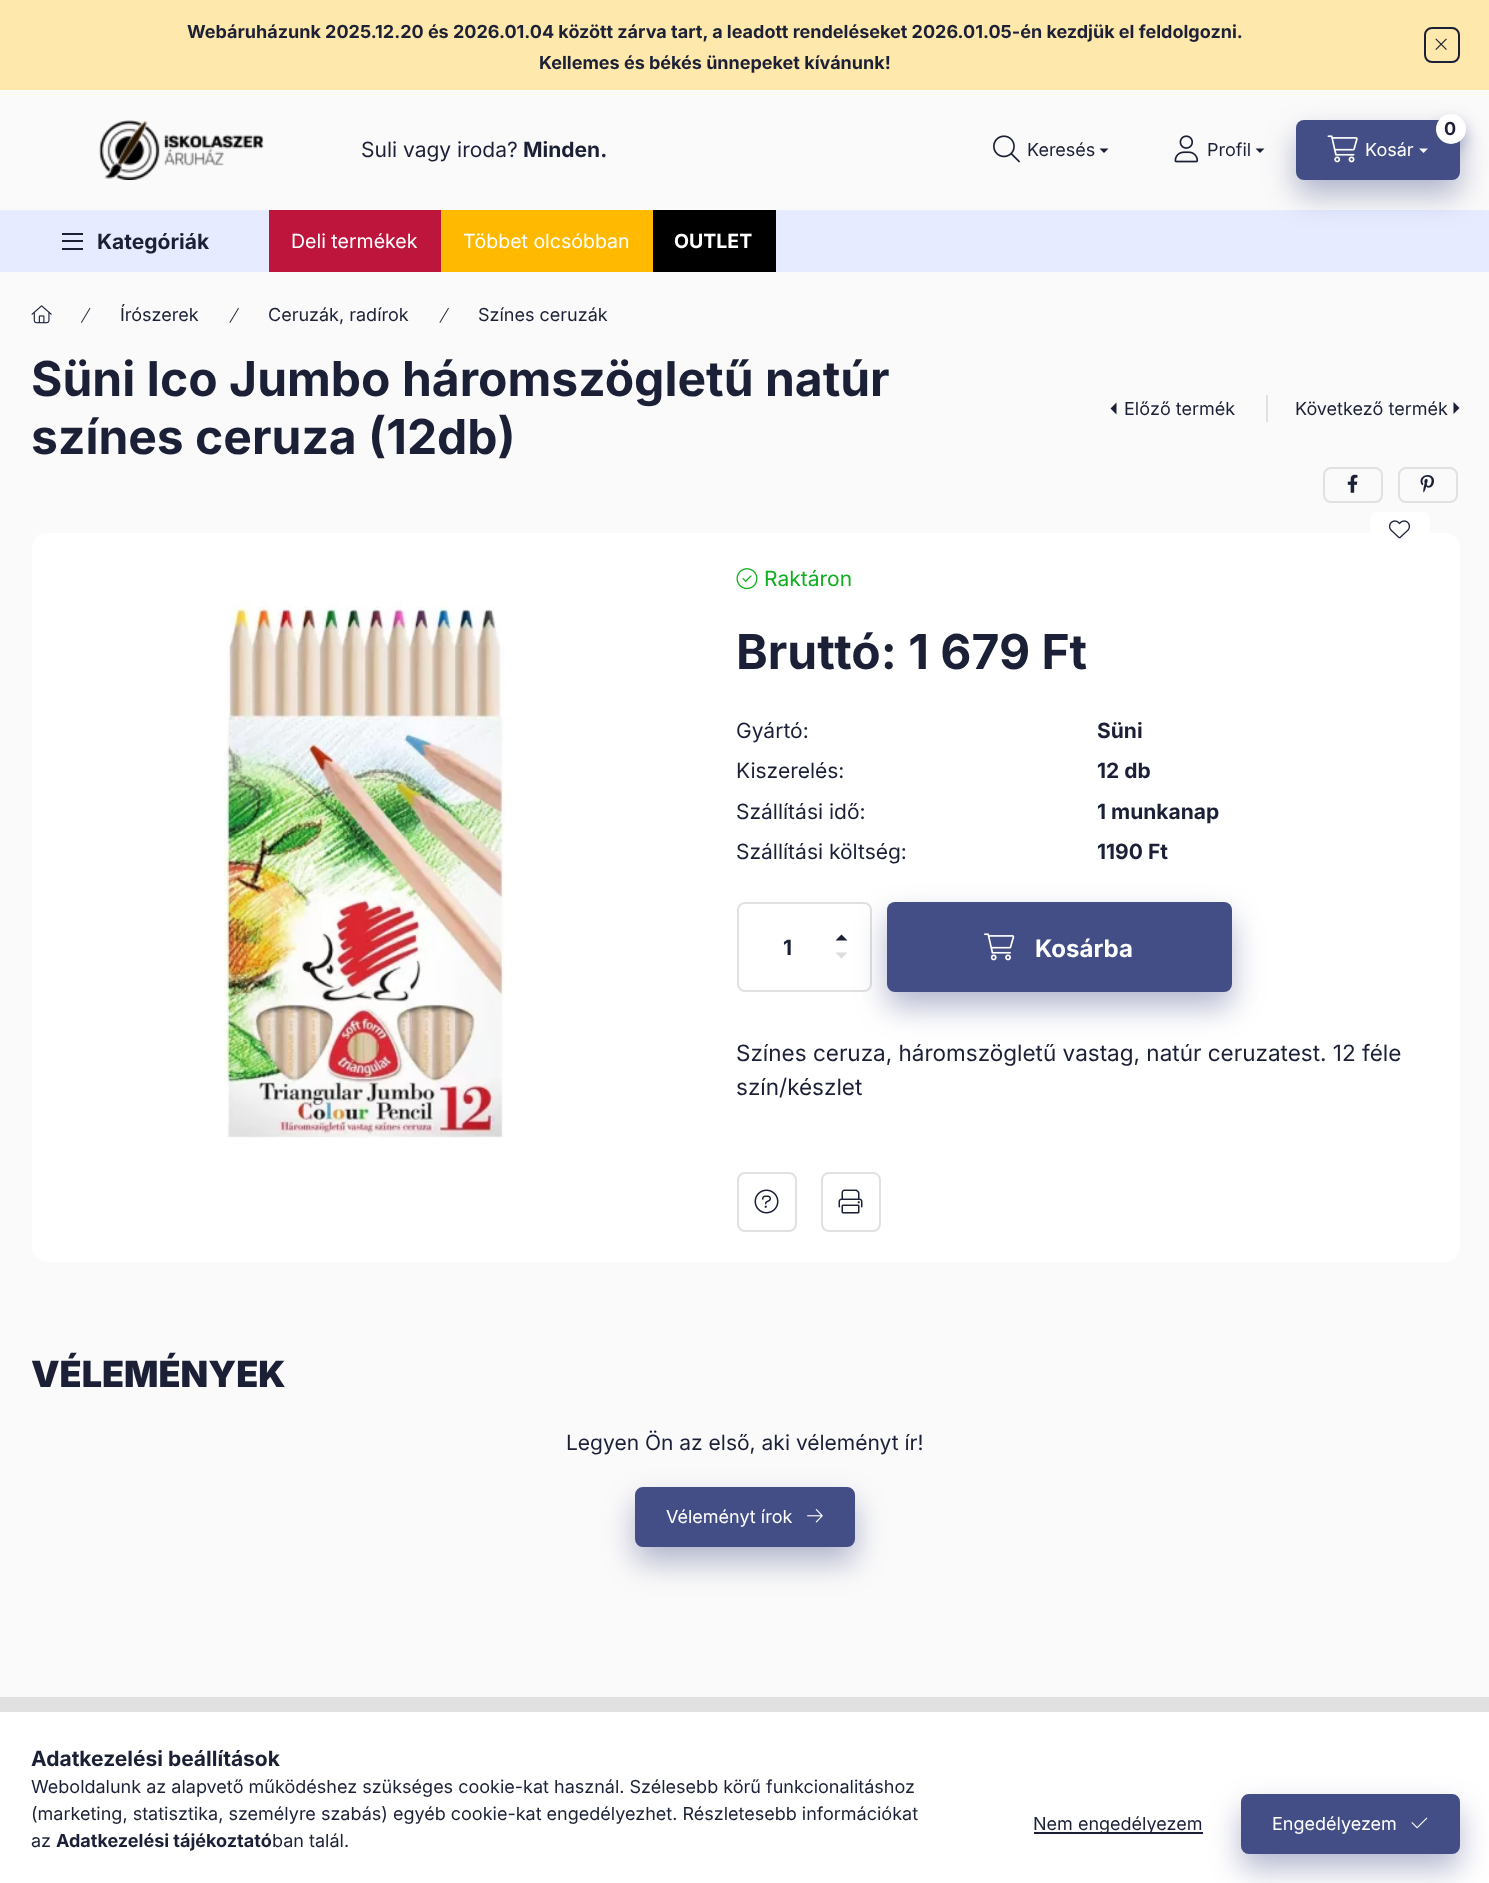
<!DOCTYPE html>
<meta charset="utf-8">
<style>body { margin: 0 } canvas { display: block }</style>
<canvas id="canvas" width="1489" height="1883"></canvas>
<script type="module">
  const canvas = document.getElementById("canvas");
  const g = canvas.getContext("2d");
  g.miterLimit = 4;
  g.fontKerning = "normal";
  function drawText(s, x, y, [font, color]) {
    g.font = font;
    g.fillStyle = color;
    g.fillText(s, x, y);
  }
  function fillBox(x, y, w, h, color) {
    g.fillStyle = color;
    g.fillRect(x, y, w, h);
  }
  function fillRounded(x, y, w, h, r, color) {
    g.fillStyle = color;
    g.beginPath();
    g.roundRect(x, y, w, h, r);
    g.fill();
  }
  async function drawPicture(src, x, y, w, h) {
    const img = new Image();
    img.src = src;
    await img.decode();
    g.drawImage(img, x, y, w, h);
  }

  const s1 = ["bold 18px Inter", "#1B2036"];
  const s2 = ["21px Inter", "#1B2036"];
  const s3 = ["bold 21px Inter", "#1B2036"];
  const s4 = ["18px Inter", "#1B2036"];
  const s5 = ["18px Inter", "#FFFFFF"];
  const s6 = ["19.5px Inter", "#FFFFFF"];
  const s7 = ["bold 19.5px Inter", "#FFFFFF"];
  const s8 = ["bold 48px Inter", "#1B2036"];
  const s9 = ["21px Inter", "#10AE20"];
  const s10 = ["bold 24px Inter", "#FFFFFF"];
  const s11 = ["22.5px Inter", "#1B2036"];
  const s12 = ["900 36px Inter", "#1B2036"];

  fillBox(0, 0, 1489, 1883, "#FAFAFA");
  fillBox(0, 210, 1489, 62, "#E6EBFF");
  g.fillStyle = "rgba(68, 78, 134, 0.4)";
  g.filter = "blur(15px)";
  g.beginPath();
  g.roundRect(1296, 135, 164, 60, 8);
  g.fill();
  g.filter = "none";
  fillBox(0, 0, 1489, 90, "#FFE8AB");
  drawText("Webáruházunk 2025.12.20 és 2026.01.04 között zárva tart, a leadott rendeléseket 2026.01.05-én kezdjük el feldolgozni.", 187, 38, s1);
  drawText("Kellemes és békés ünnepeket kívánunk!", 539, 69, s1);
  g.beginPath();
  g.roundRect(1425, 28, 34, 34, 7);
  g.strokeStyle = "#1B2036";
  g.lineWidth = 2;
  g.stroke();
  await drawPicture("pic1.png", 1435, 38, 12, 12);
  await drawPicture("pic2.png", 98, 120, 166, 60);
  drawText("Suli vagy iroda?", 361, 157, s2);
  drawText("Minden.", 523, 157, s3);
  await drawPicture("pic3.png", 993, 135, 27, 28);
  drawText("Keresés", 1027, 156, s4);
  g.beginPath();
  g.moveTo(1099.5, 148.5);
  g.lineTo(1108.5, 148.5);
  g.lineTo(1104, 153);
  g.closePath();
  g.fill();
  await drawPicture("pic4.png", 1174, 135, 25, 28);
  drawText("Profil", 1207, 156, s4);
  g.beginPath();
  g.moveTo(1255.5, 148.5);
  g.lineTo(1264.5, 148.5);
  g.lineTo(1260, 153);
  g.closePath();
  g.fill();
  fillRounded(1296, 120, 164, 60, 8, "#444E86");
  g.fillStyle = "rgba(68, 78, 134, 0.4)";
  g.filter = "blur(7.5px)";
  g.beginPath();
  g.roundRect(1436, 122, 30, 30, 15);
  g.fill();
  g.filter = "none";
  g.fillStyle = "#FFFFFF";
  g.beginPath();
  g.arc(1451, 129, 15, 0, Math.PI * 2);
  g.fill();
  drawText("0", 1444, 135, s1);
  await drawPicture("pic5.png", 1327, 135, 31, 28);
  drawText("Kosár", 1365, 156, s5);
  g.beginPath();
  g.moveTo(1419, 148.5);
  g.lineTo(1428, 148.5);
  g.lineTo(1423.5, 153);
  g.closePath();
  g.fill();
  fillBox(62, 233, 21, 2, "#1B2036");
  fillBox(62, 240, 21, 2, "#1B2036");
  fillBox(62, 248, 21, 2, "#1B2036");
  drawText("Kategóriák", 97, 249, s3);
  fillBox(269, 210, 172, 62, "#BE153C");
  drawText("Deli termékek", 291, 248, s6);
  fillBox(441, 210, 212, 62, "#FFBA00");
  drawText("Többet olcsóbban", 463, 248, s6);
  fillBox(653, 210, 123, 62, "#000000");
  drawText("OUTLET", 674, 248, s7);
  await drawPicture("pic6.png", 31, 305, 21, 19);
  await drawPicture("pic7.png", 81, 307, 10, 16);
  drawText("Írószerek", 120, 321, s4);
  await drawPicture("pic8.png", 229, 307, 10, 16);
  drawText("Ceruzák, radírok", 268, 321, s4);
  await drawPicture("pic8.png", 439, 307, 10, 16);
  drawText("Színes ceruzák", 478, 321, s4);
  drawText("Süni Ico Jumbo háromszögletű natúr", 31, 396, s8);
  drawText("színes ceruza (12db)", 31, 454, s8);
  g.beginPath();
  g.moveTo(1116.5, 414.5);
  g.lineTo(1116.5, 402.5);
  g.lineTo(1110.5, 408.5);
  g.closePath();
  g.fill();
  drawText("Előző termék", 1124, 415, s4);
  fillBox(1266, 395, 2, 27, "#E1E1E1");
  drawText("Következő termék", 1295, 415, s4);
  g.beginPath();
  g.moveTo(1453.5, 414);
  g.lineTo(1453.5, 402);
  g.lineTo(1459.5, 408);
  g.closePath();
  g.fill();
  g.beginPath();
  g.roundRect(1324, 468, 58, 34, 7);
  g.strokeStyle = "#E1E1E1";
  g.stroke();
  await drawPicture("pic9.png", 1347, 474, 11, 19);
  g.beginPath();
  g.roundRect(1399, 468, 58, 34, 7);
  g.stroke();
  await drawPicture("pic10.png", 1420, 475, 14, 18);
  fillRounded(32, 533, 1428, 729, 15, "#FFFFFF");
  fillRounded(1370, 512, 60, 36, 8, "#FFFFFF");
  await drawPicture("pic11.png", 1389, 520, 21, 19);
  await drawPicture("pic12.png", 223, 601, 282, 537);
  await drawPicture("pic13.png", 736, 568, 22, 22);
  drawText("Raktáron", 764, 586, s9);
  drawText("Bruttó: 1 679 Ft", 736, 669, s8);
  drawText("Gyártó:", 736, 738, s2);
  drawText("Süni", 1097, 738, s3);
  drawText("Kiszerelés:", 736, 778, s2);
  drawText("12 db", 1097, 778, s3);
  drawText("Szállítási idő:", 736, 819, s2);
  drawText("1 munkanap", 1097, 819, s3);
  drawText("Szállítási költség:", 736, 859, s2);
  drawText("1190 Ft", 1097, 859, s3);
  g.beginPath();
  g.roundRect(738, 903, 133, 88, 7);
  g.stroke();
  drawText("1", 783, 955, s3);
  g.beginPath();
  g.moveTo(847.5, 940.5);
  g.lineTo(835.5, 940.5);
  g.lineTo(841.5, 934.5);
  g.closePath();
  g.fill();
  g.fillStyle = "#DDDDDD";
  g.beginPath();
  g.moveTo(835.5, 952.5);
  g.lineTo(847.5, 952.5);
  g.lineTo(841.5, 958.5);
  g.closePath();
  g.fill();
  g.fillStyle = "rgba(68, 78, 134, 0.4)";
  g.filter = "blur(15px)";
  g.beginPath();
  g.roundRect(887, 917, 345, 90, 8);
  g.fill();
  g.filter = "none";
  fillRounded(887, 902, 345, 90, 8, "#444E86");
  await drawPicture("pic14.png", 984, 933, 31, 28);
  drawText("Kosárba", 1035, 957, s10);
  drawText("Színes ceruza, háromszögletű vastag, natúr ceruzatest. 12 féle", 736, 1061, s11);
  drawText("szín/készlet", 736, 1095, s11);
  g.beginPath();
  g.roundRect(738, 1173, 58, 58, 7);
  g.stroke();
  await drawPicture("pic15.png", 754, 1189, 25, 25);
  g.beginPath();
  g.roundRect(822, 1173, 58, 58, 7);
  g.stroke();
  await drawPicture("pic16.png", 838, 1189, 25, 25);
  drawText("VÉLEMÉNYEK", 31, 1387, s12);
  drawText("Legyen Ön az első, aki véleményt ír!", 566, 1450, s2);
  g.fillStyle = "rgba(68, 78, 134, 0.4)";
  g.filter = "blur(15px)";
  g.beginPath();
  g.roundRect(635, 1502, 220, 60, 8);
  g.fill();
  g.filter = "none";
  g.fillStyle = "#444E86";
  g.beginPath();
  g.roundRect(636, 1488, 218, 58, 7);
  g.fill();
  g.strokeStyle = "#444E86";
  g.stroke();
  drawText("Véleményt írok", 666, 1523, s5);
  await drawPicture("pic17.png", 807, 1509, 16, 14);
  fillBox(0, 1697, 1489, 15, "#E1E1E1");
  fillBox(0, 1712, 1489, 171, "#FFFFFF");
  drawText("Adatkezelési beállítások", 31, 1766, s3);
  drawText("Weboldalunk az alapvető működéshez szükséges cookie-kat használ. Szélesebb körű funkcionalitáshoz", 31, 1793, s4);
  drawText("(marketing, statisztika, személyre szabás) egyéb cookie-kat engedélyezhet. Részletesebb információkat", 31, 1820, s4);
  drawText("az", 31, 1847, s4);
  drawText("Adatkezelési tájékoztató", 56, 1847, s1);
  drawText("ban talál.", 272, 1847, s4);
  fillBox(1034, 1832, 169, 2, "#1B2036");
  drawText("Nem engedélyezem", 1033, 1830, s4);
  g.fillStyle = "rgba(68, 78, 134, 0.4)";
  g.filter = "blur(15px)";
  g.beginPath();
  g.roundRect(1241, 1809, 219, 60, 8);
  g.fill();
  g.filter = "none";
  g.fillStyle = "#444E86";
  g.beginPath();
  g.roundRect(1242, 1795, 217, 58, 7);
  g.fill();
  g.stroke();
  drawText("Engedélyezem", 1272, 1830, s5);
  await drawPicture("pic18.png", 1411, 1817, 17, 12);
</script>
